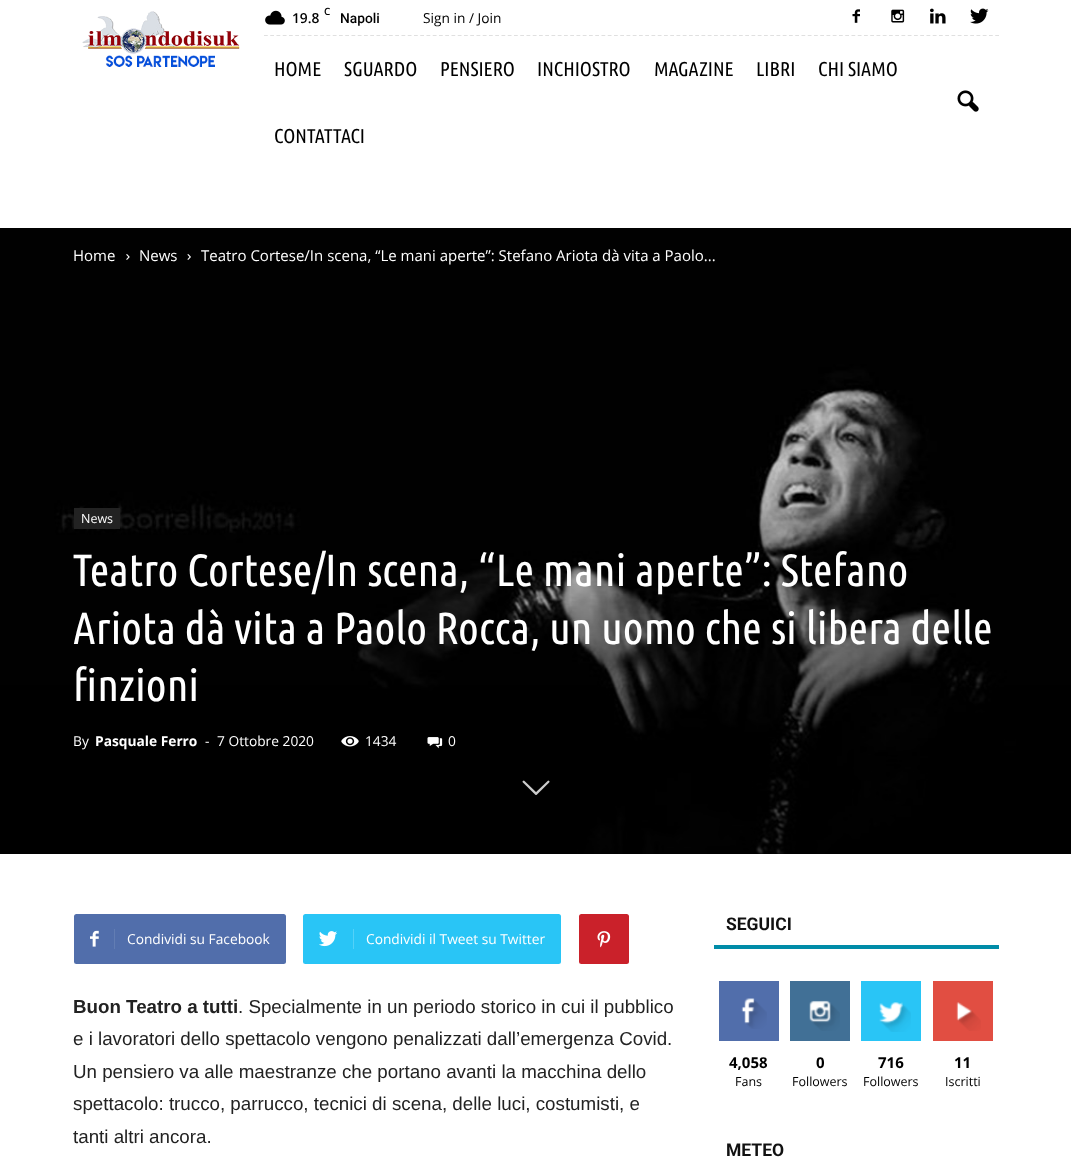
<!DOCTYPE html>
<meta charset="utf-8">
<style>body { margin: 0 } canvas { display: block }</style>
<canvas id="canvas" width="1071" height="1167"></canvas>
<script type="module">
  const canvas = document.getElementById("canvas");
  const g = canvas.getContext("2d");
  g.miterLimit = 4;
  g.fontKerning = "normal";
  function drawText(s, x, y, [font, color]) {
    g.font = font;
    g.fillStyle = color;
    g.fillText(s, x, y);
  }
  function fillBox(x, y, w, h, color) {
    g.fillStyle = color;
    g.fillRect(x, y, w, h);
  }
  function fillRounded(x, y, w, h, r, color) {
    g.fillStyle = color;
    g.beginPath();
    g.roundRect(x, y, w, h, r);
    g.fill();
  }
  async function drawPicture(src, x, y, w, h) {
    const img = new Image();
    img.src = src;
    await img.decode();
    g.drawImage(img, x, y, w, h);
  }

  const s1 = ["600 10px Open Sans", "#000000"];
  const s2 = ["600 13.75px Open Sans", "#000000"];
  const s3 = ["500 13.75px Roboto", "#000000"];
  const s4 = ["13.75px Open Sans", "#000000"];
  const s5 = ["20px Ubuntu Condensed", "#000000"];
  const s6 = ["15px Open Sans", "#FFFFFF"];
  const s7 = ["12.5px Open Sans", "#FFFFFF"];
  const s8 = ["45px Ubuntu Condensed", "#FFFFFF"];
  const s9 = ["13.75px Open Sans", "#FFFFFF"];
  const s10 = ["bold 13.75px Open Sans", "#FFFFFF"];
  const s11 = ["bold 18.75px Liberation Sans", "#222222"];
  const s12 = ["18.75px Liberation Sans", "#222222"];
  const s13 = ["bold 17.5px Roboto", "#111111"];
  const s14 = ["bold 15px Open Sans", "#000000"];
  const s15 = ["12.5px Open Sans", "#000000"];

  fillBox(0, 0, 1071, 1167, "#FFFFFF");
  await drawPicture("pic1.png", 82, 11, 158, 56);
  g.beginPath();
  g.moveTo(264, 35.5);
  g.lineTo(999, 35.5);
  g.strokeStyle = "#E0E0E0";
  g.lineWidth = 1.2;
  g.setLineDash([3.75, 2.5]);
  g.stroke();
  await drawPicture("pic2.png", 265, 10, 20, 15);
  drawText("C", 324, 15, s1);
  drawText("19.8", 292, 23, s2);
  drawText("Napoli", 340, 23, s3);
  drawText("Sign in / Join", 423, 23, s4);
  await drawPicture("pic3.png", 852, 9, 8, 14);
  await drawPicture("pic4.png", 891, 9, 14, 14);
  await drawPicture("pic5.png", 930, 8, 16, 16);
  await drawPicture("pic6.png", 970, 8, 19, 16);
  drawText("HOME", 274, 76, s5);
  drawText("SGUARDO", 344, 76, s5);
  drawText("PENSIERO", 440, 76, s5);
  drawText("INCHIOSTRO", 537, 76, s5);
  drawText("MAGAZINE", 654, 76, s5);
  drawText("LIBRI", 756, 76, s5);
  drawText("CHI SIAMO", 818, 76, s5);
  drawText("CONTATTACI", 274, 143, s5);
  await drawPicture("pic7.png", 957, 90, 22, 22);
  await drawPicture("pic8.png", 0, 228, 1071, 626);
  drawText("Home", 73, 261, s6);
  await drawPicture("pic9.png", 126, 254, 4, 6);
  drawText("News", 139, 261, s6);
  await drawPicture("pic10.png", 187, 254, 4, 6);
  drawText("Teatro Cortese/In scena, “Le mani aperte”: Stefano Ariota dà vita a Paolo...", 201, 261, s6);
  fillBox(74, 508, 46, 21, "#222222");
  drawText("News", 81, 523, s7);
  drawText("Teatro Cortese/In scena, “Le mani aperte”: Stefano", 73, 586, s8);
  drawText("Ariota dà vita a Paolo Rocca, un uomo che si libera delle", 73, 644, s8);
  drawText("finzioni", 73, 701, s8);
  drawText("By", 73, 746, s9);
  drawText("Pasquale Ferro", 95, 746, s10);
  drawText("-", 205, 746, s9);
  drawText("7 Ottobre 2020", 217, 746, s9);
  await drawPicture("pic11.png", 341, 736, 18, 11);
  drawText("1434", 365, 746, s9);
  await drawPicture("pic12.png", 427, 737, 16, 12);
  drawText("0", 448, 746, s9);
  await drawPicture("pic13.png", 522, 780, 28, 15);
  fillRounded(74, 914, 212, 50, 2.5, "#516EAB");
  await drawPicture("pic14.png", 90, 930, 9, 17);
  fillBox(114, 929, 1, 20, "#627DB3");
  drawText("Condividi su Facebook", 127, 944, s9);
  fillRounded(303, 914, 258, 50, 2.5, "#29C5F6");
  await drawPicture("pic15.png", 319, 931, 18, 16);
  fillBox(353, 929, 1, 20, "#54D1F8");
  drawText("Condividi il Tweet su Twitter", 366, 944, s9);
  fillRounded(579, 914, 50, 50, 2.5, "#CA212A");
  await drawPicture("pic16.png", 597, 931, 14, 17);
  drawText("Buon Teatro a tutti", 73, 1013, s11);
  drawText(". Specialmente in un periodo storico in cui il pubblico", 238, 1013, s12);
  drawText("e i lavoratori dello spettacolo vengono penalizzati dall’emergenza Covid.", 73, 1045, s12);
  drawText("Un pensiero va alle maestranze che portano avanti la macchina dello", 73, 1078, s12);
  drawText("spettacolo: trucco, parrucco, tecnici di scena, delle luci, costumisti, e", 73, 1110, s12);
  drawText("tanti altri ancora.", 73, 1143, s12);
  fillBox(714, 945, 285, 4, "#008CA8");
  drawText("SEGUICI", 726, 930, s13);
  fillBox(719, 981, 60, 60, "#516EAB");
  await drawPicture("pic17.png", 741, 998, 26, 31);
  drawText("4,058", 729, 1068, s14);
  drawText("Fans", 735, 1086, s15);
  fillBox(790, 981, 60, 60, "#417096");
  await drawPicture("pic18.png", 809, 1000, 31, 31);
  drawText("0", 816, 1068, s14);
  drawText("Followers", 792, 1086, s15);
  fillBox(861, 981, 60, 60, "#29C5F6");
  await drawPicture("pic19.png", 879, 1002, 32, 30);
  drawText("716", 878, 1068, s14);
  drawText("Followers", 863, 1086, s15);
  fillBox(933, 981, 60, 60, "#E14E42");
  await drawPicture("pic20.png", 956, 1002, 25, 29);
  drawText("11", 954, 1068, s14);
  drawText("Iscritti", 945, 1086, s15);
  drawText("METEO", 726, 1156, s13);
</script>
